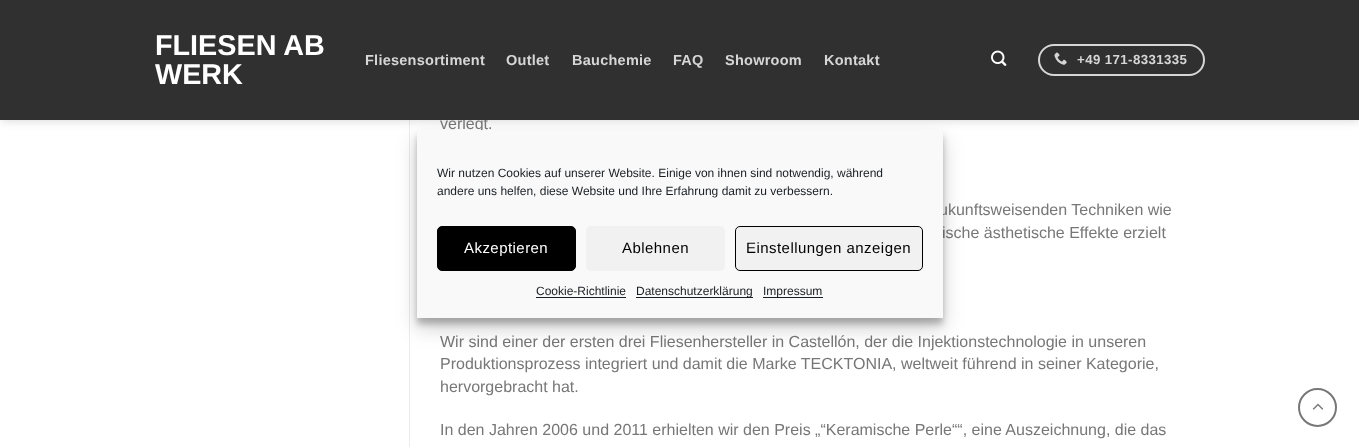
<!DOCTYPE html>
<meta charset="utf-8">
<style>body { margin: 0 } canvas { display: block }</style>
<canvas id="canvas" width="1359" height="447"></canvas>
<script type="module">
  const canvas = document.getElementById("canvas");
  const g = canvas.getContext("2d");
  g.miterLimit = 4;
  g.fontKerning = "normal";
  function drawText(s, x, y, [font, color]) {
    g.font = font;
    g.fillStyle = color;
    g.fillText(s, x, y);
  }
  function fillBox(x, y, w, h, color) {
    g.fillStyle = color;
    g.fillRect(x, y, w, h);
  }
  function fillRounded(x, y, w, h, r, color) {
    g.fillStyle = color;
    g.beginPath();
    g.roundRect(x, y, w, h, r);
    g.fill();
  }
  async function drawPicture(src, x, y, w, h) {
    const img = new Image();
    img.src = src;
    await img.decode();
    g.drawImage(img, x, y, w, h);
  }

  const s1 = ["16px Liberation Sans", "#777777"];
  const s2 = ["bold 28.75px Liberation Sans", "#FFFFFF"];
  const s3 = ["bold 14.5px Liberation Sans", "#D6D6D6"];
  const s4 = ["bold 13.25px Liberation Sans", "#D6D6D6"];
  const s5 = ["12px Liberation Sans", "#191E23"];
  const s6 = ["15px Liberation Sans", "#FFFFFF"];
  const s7 = ["15px Liberation Sans", "#000000"];

  fillBox(0, 0, 1359, 447, "#FFFFFF");
  fillBox(409, 120, 1, 327, "#ECECEC");
  g.fillStyle = "rgba(0, 0, 0, 0.15)";
  g.filter = "blur(5px)";
  g.beginPath();
  g.rect(1, 1, 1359, 120);
  g.fill();
  g.filter = "none";
  drawText("verlegt.", 440, 129, s1);
  fillBox(0, 0, 1359, 120, "#303030");
  drawText("FLIESEN AB", 155, 55, s2);
  drawText("WERK", 155, 84, s2);
  g.letterSpacing = "0.25px";
  drawText("Fliesensortiment", 365, 65, s3);
  drawText("Outlet", 506, 65, s3);
  drawText("Bauchemie", 572, 65, s3);
  drawText("FAQ", 673, 65, s3);
  drawText("Showroom", 725, 65, s3);
  drawText("Kontakt", 824, 65, s3);
  await drawPicture("pic1.png", 991, 50, 16, 16);
  g.beginPath();
  g.roundRect(1039, 45, 165, 30, 15);
  g.strokeStyle = "#D6D6D6";
  g.lineWidth = 2;
  g.stroke();
  await drawPicture("pic2.png", 1054, 52, 13, 13);
  g.letterSpacing = "0.4px";
  drawText("+49 171-8331335", 1077, 64, s4);
  g.letterSpacing = "0px";
  drawText("ukunftsweisenden Techniken wie", 939, 215, s1);
  drawText("ische ästhetische Effekte erzielt", 942, 238, s1);
  drawText("Wir sind einer der ersten drei Fliesenhersteller in Castellón, der die Injektionstechnologie in unseren", 440, 347, s1);
  drawText("Produktionsprozess integriert und damit die Marke TECKTONIA, weltweit führend in seiner Kategorie,", 440, 369, s1);
  drawText("hervorgebracht hat.", 440, 392, s1);
  drawText("In den Jahren 2006 und 2011 erhielten wir den Preis „“Keramische Perle““, eine Auszeichnung, die das", 440, 435, s1);
  g.beginPath();
  g.arc(1317.5, 407.5, 18.5, 0, Math.PI * 2);
  g.strokeStyle = "#777777";
  g.stroke();
  await drawPicture("pic3.png", 1312, 403, 12, 7);
  g.fillStyle = "rgba(0, 0, 0, 0.23)";
  g.filter = "blur(3px)";
  g.beginPath();
  g.rect(417, 136, 526, 188);
  g.fill();
  g.filter = "none";
  g.fillStyle = "rgba(0, 0, 0, 0.19)";
  g.filter = "blur(10px)";
  g.beginPath();
  g.rect(417, 140, 526, 188);
  g.fill();
  g.filter = "none";
  fillBox(417, 130, 526, 188, "#F9F9F9");
  drawText("Wir nutzen Cookies auf unserer Website. Einige von ihnen sind notwendig, während", 437, 177, s5);
  drawText("andere uns helfen, diese Website und Ihre Erfahrung damit zu verbessern.", 437, 195, s5);
  g.fillStyle = "#000000";
  g.beginPath();
  g.roundRect(437.5, 226.5, 138, 44, 4.5);
  g.fill();
  g.strokeStyle = "#000000";
  g.lineWidth = 1;
  g.stroke();
  g.letterSpacing = "0.45px";
  drawText("Akzeptieren", 464, 253, s6);
  fillRounded(586, 226, 139, 45, 5, "#F1F1F1");
  drawText("Ablehnen", 622, 253, s7);
  g.fillStyle = "#F1F1F1";
  g.beginPath();
  g.roundRect(735.5, 226.5, 187, 44, 4.5);
  g.fill();
  g.stroke();
  drawText("Einstellungen anzeigen", 746, 253, s7);
  g.letterSpacing = "0px";
  drawText("Cookie-Richtlinie", 536, 295, s5);
  fillBox(536, 297, 90, 1, "#191E23");
  fillBox(636, 297, 117, 1, "#191E23");
  drawText("Datenschutzerklärung", 636, 295, s5);
  fillBox(763, 297, 60, 1, "#191E23");
  drawText("Impressum", 763, 295, s5);
</script>
